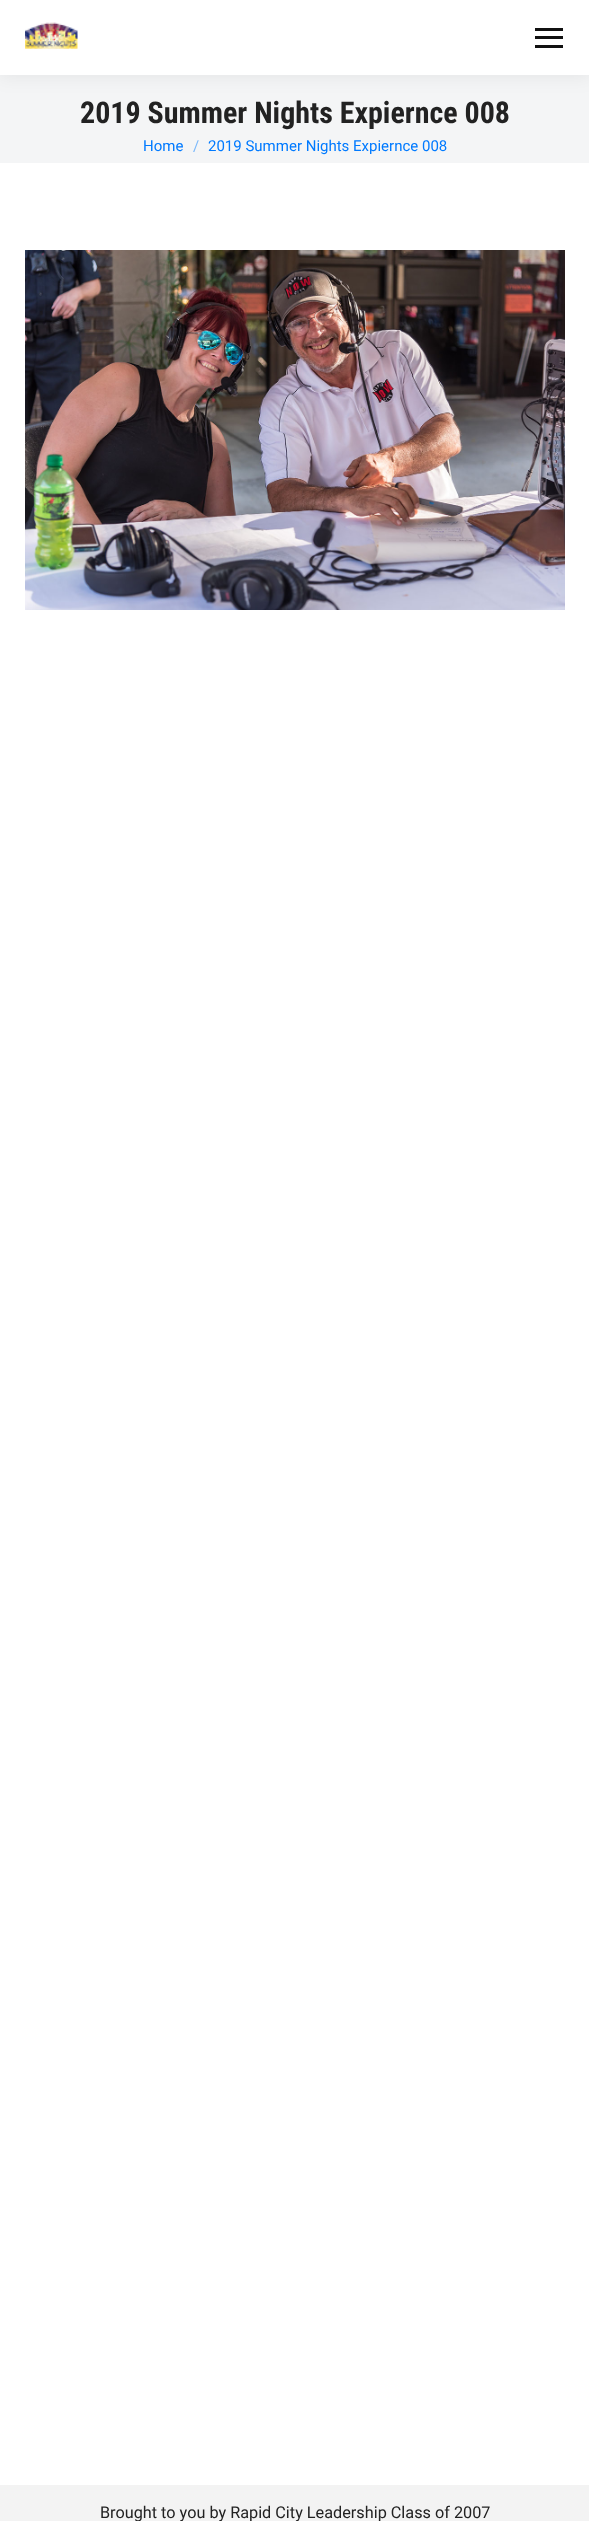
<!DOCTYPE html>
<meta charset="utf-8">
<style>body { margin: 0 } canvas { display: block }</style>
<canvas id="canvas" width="589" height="2521"></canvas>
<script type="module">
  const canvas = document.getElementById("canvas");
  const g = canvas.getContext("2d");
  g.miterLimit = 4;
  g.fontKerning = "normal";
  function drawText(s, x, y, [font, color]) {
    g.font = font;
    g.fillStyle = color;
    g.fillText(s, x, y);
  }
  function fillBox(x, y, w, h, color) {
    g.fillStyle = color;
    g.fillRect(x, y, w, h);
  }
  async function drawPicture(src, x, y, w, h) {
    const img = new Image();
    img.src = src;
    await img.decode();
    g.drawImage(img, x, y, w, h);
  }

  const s1 = ["bold 30px Roboto Condensed", "#222222"];
  const s2 = ["15px Roboto", "#007AFF"];
  const s3 = ["15px Roboto", "#7AB8FB"];
  const s4 = ["16.25px Roboto", "#222222"];

  fillBox(0, 0, 589, 2521, "#F3F3F3");
  fillBox(0, 75, 589, 88, "#F4F5F6");
  g.fillStyle = "rgba(0, 0, 0, 0.07)";
  g.filter = "blur(9.5px)";
  g.beginPath();
  g.rect(-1, -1, 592, 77);
  g.fill();
  g.filter = "none";
  fillBox(0, 0, 589, 75, "#FFFFFF");
  await drawPicture("pic1.png", 25, 22, 53, 28);
  fillBox(535, 28, 28, 3, "#111111");
  fillBox(535, 36, 28, 3, "#111111");
  fillBox(535, 45, 28, 3, "#111111");
  fillBox(0, 163, 589, 2322, "#FFFFFF");
  drawText("2019 Summer Nights Expiernce 008", 80, 123, s1);
  drawText("Home", 143, 151, s2);
  drawText("/", 193, 151, s3);
  drawText("2019 Summer Nights Expiernce 008", 208, 151, s2);
  await drawPicture("pic2.png", 25, 250, 540, 360);
  drawText("Brought to you by Rapid City Leadership Class of 2007", 100, 2518, s4);
</script>
